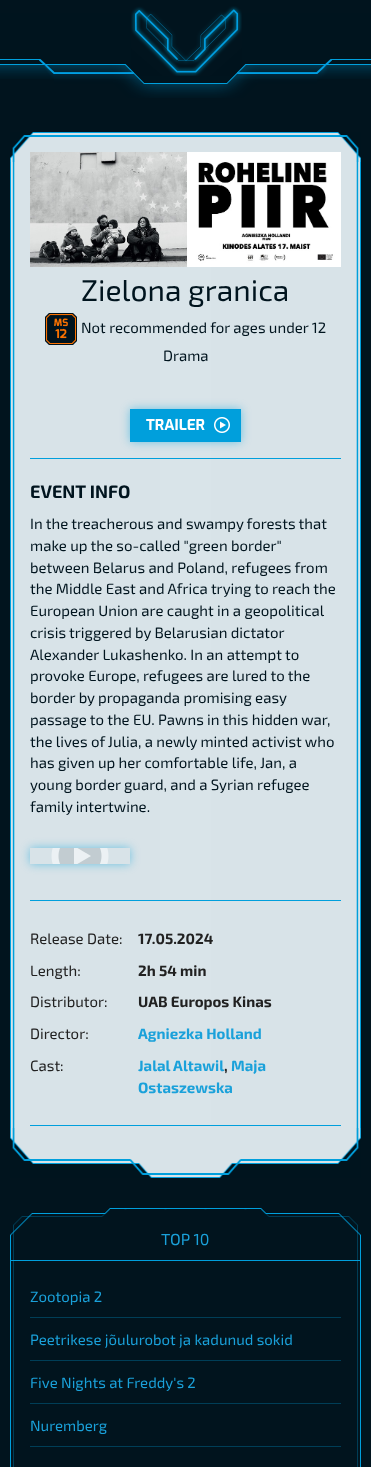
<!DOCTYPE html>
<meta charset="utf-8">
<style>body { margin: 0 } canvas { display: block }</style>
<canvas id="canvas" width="371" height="1467"></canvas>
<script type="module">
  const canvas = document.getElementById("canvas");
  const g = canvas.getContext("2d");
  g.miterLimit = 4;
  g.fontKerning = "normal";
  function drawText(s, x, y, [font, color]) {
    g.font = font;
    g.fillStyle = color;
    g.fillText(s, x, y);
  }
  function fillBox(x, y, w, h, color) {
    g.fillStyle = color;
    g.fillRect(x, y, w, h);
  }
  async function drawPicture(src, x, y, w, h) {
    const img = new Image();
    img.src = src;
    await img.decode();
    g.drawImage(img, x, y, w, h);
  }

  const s1 = ["30px 'Exo 2'", "#00141E"];
  const s2 = ["15px 'Exo 2'", "#00141E"];
  const s3 = ["bold 15px Exo", "#FFFFFF"];
  const s4 = ["bold 18px 'Exo 2'", "#00141E"];
  const s5 = ["15px 'Exo 2'", "#212121"];
  const s6 = ["bold 15px 'Exo 2'", "#212121"];
  const s7 = ["bold 15px 'Exo 2'", "#1AA1DA"];
  const s8 = ["16px 'Exo 2'", "#1AA1DA"];
  const s9 = ["15px 'Exo 2'", "#1AA1DA"];

  fillBox(0, 0, 371, 1467, "#01141E");
  await drawPicture("pic1.png", 0, 13, 371, 66);
  await drawPicture("pic2.png", 39, 59, 293, 39);
  await drawPicture("pic3.png", 131, 6, 111, 70);
  fillBox(160, 267, 51, 861, "#D9E4E9");
  await drawPicture("pic4.png", 10, 132, 351, 1046);
  await drawPicture("pic5.png", 30, 152, 311, 115);
  drawText("Zielona granica", 81, 301, s1);
  await drawPicture("pic6.png", 45, 313, 32, 32);
  drawText("Not recommended for ages under 12", 81, 333, s2);
  drawText("Drama", 163, 361, s2);
  g.fillStyle = "rgba(0, 159, 220, 0.5)";
  g.filter = "blur(5px)";
  g.beginPath();
  g.rect(130, 409, 111, 33);
  g.fill();
  g.filter = "none";
  fillBox(130, 409, 111, 33, "#009FDC");
  await drawPicture("pic7.png", 214, 417, 16, 16);
  drawText("TRAILER", 146, 430, s3);
  fillBox(30, 458, 311, 1, "#009FDC");
  drawText("EVENT INFO", 30, 498, s4);
  drawText("In the treacherous and swampy forests that", 30, 529, s2);
  drawText("make up the so-called \"green border\"", 30, 551, s2);
  drawText("between Belarus and Poland, refugees from", 30, 573, s2);
  drawText("the Middle East and Africa trying to reach the", 30, 594, s2);
  drawText("European Union are caught in a geopolitical", 30, 616, s2);
  drawText("crisis triggered by Belarusian dictator", 30, 638, s2);
  drawText("Alexander Lukashenko. In an attempt to", 30, 660, s2);
  drawText("provoke Europe, refugees are lured to the", 30, 681, s2);
  drawText("border by propaganda promising easy", 30, 703, s2);
  drawText("passage to the EU. Pawns in this hidden war,", 30, 725, s2);
  drawText("the lives of Julia, a newly minted activist who", 30, 747, s2);
  drawText("has given up her comfortable life, Jan, a", 30, 768, s2);
  drawText("young border guard, and a Syrian refugee", 30, 790, s2);
  drawText("family intertwine.", 30, 812, s2);
  g.save();
  g.beginPath();
  g.moveTo(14, 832);
  g.lineTo(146, 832);
  g.lineTo(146, 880);
  g.lineTo(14, 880);
  g.closePath();
  g.moveTo(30, 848);
  g.lineTo(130, 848);
  g.lineTo(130, 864);
  g.lineTo(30, 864);
  g.closePath();
  g.clip("evenodd");
  g.fillStyle = "rgba(0, 159, 220, 0.5)";
  g.filter = "blur(5px)";
  g.beginPath();
  g.rect(30, 848, 100, 16);
  g.fill();
  g.filter = "none";
  g.restore();
  await drawPicture("pic8.png", 51, 848, 58, 16);
  fillBox(30, 900, 311, 1, "#009FDC");
  drawText("Release Date:", 30, 944, s5);
  drawText("17.05.2024", 138, 944, s6);
  drawText("Length:", 30, 976, s5);
  drawText("2h 54 min", 138, 976, s6);
  drawText("Distributor:", 30, 1007, s5);
  drawText("UAB Europos Kinas", 138, 1007, s6);
  drawText("Director:", 30, 1039, s5);
  drawText("Agniezka Holland", 138, 1039, s7);
  drawText("Cast:", 30, 1071, s5);
  drawText("Jalal Altawil", 138, 1071, s7);
  drawText(",", 224, 1071, s6);
  drawText("Maja", 231, 1071, s7);
  drawText("Ostaszewska", 138, 1093, s7);
  fillBox(30, 1125, 311, 1, "#009FDC");
  await drawPicture("pic9.png", 10, 1208, 351, 259);
  drawText("TOP 10", 161, 1245, s8);
  fillBox(10, 1260, 351, 1, "#009FDC");
  drawText("Zootopia 2", 30, 1302, s9);
  fillBox(30, 1317, 311, 1, "#003E57");
  drawText("Peetrikese jõulurobot ja kadunud sokid", 30, 1345, s9);
  fillBox(30, 1360, 311, 1, "#003E57");
  drawText("Five Nights at Freddy's 2", 30, 1388, s9);
  fillBox(30, 1403, 311, 1, "#003E57");
  drawText("Nuremberg", 30, 1431, s9);
  fillBox(30, 1446, 311, 1, "#003E57");
</script>
